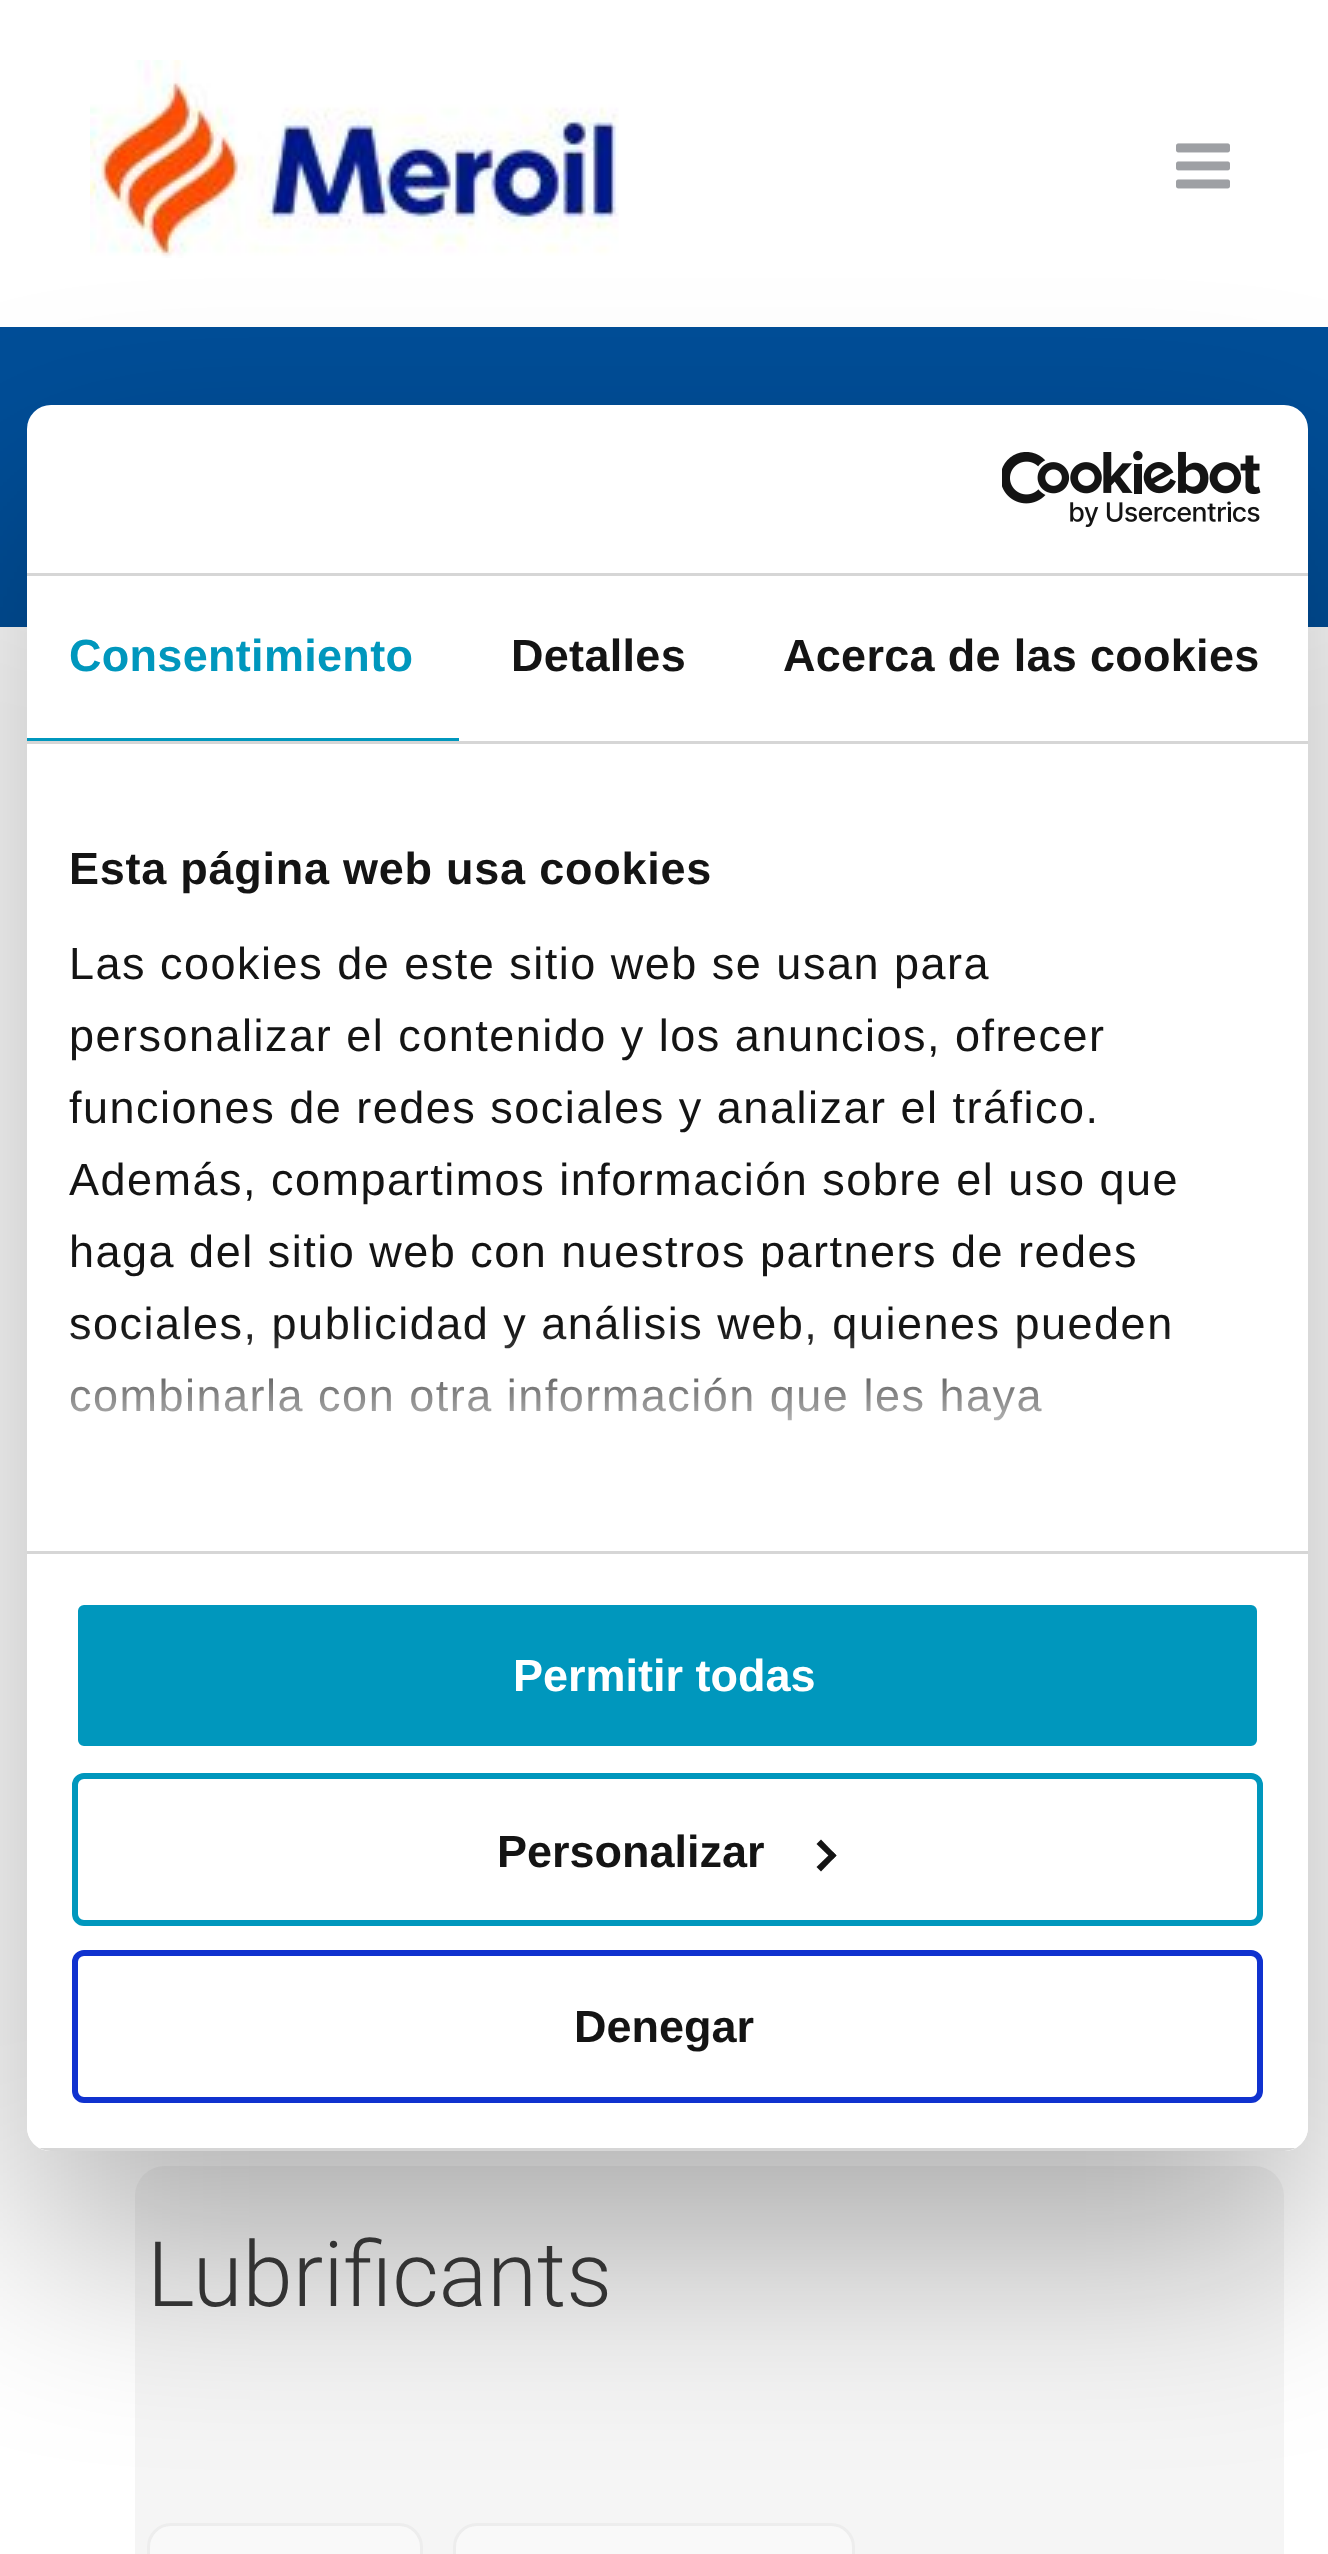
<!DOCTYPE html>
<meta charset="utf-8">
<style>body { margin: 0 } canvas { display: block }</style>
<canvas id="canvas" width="1328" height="2554"></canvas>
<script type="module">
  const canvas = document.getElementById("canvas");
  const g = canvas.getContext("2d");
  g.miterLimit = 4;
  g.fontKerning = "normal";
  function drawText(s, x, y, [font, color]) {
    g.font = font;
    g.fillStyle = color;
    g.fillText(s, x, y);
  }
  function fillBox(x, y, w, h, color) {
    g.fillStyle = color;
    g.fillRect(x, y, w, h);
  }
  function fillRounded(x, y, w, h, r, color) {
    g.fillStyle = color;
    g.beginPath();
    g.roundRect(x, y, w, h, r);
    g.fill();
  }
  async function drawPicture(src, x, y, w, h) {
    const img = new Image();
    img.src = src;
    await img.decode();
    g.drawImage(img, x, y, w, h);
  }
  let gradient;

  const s1 = ["bold 45px Liberation Sans", "#0097BD"];
  const s2 = ["bold 45px Liberation Sans", "#141414"];
  const s3 = ["45px Liberation Sans", "#141414"];
  const s4 = ["bold 45px Liberation Sans", "#FFFFFF"];
  const s5 = ["300 90.5px Roboto", "#333333"];

  fillBox(0, 0, 1328, 2554, "#FFFFFF");
  await drawPicture("pic2.png", 90, 60, 529, 198);
  fillBox(0, 327, 1328, 300, "#004E98");
  fillRounded(135, 2166, 1149, 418, 30, "#F5F5F5");
  g.fillStyle = "#F9F9F9";
  g.beginPath();
  g.roundRect(148.5, 2524.5, 273, 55, 22.5);
  g.fill();
  g.strokeStyle = "#EDEDED";
  g.lineWidth = 3;
  g.stroke();
  g.beginPath();
  g.roundRect(454.5, 2524.5, 399, 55, 22.5);
  g.fill();
  g.stroke();
  g.save();
  g.beginPath();
  g.moveTo(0, 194);
  g.lineTo(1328, 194);
  g.lineTo(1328, 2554);
  g.lineTo(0, 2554);
  g.closePath();
  g.moveTo(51, 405);
  g.lineTo(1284, 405);
  g.bezierCurveTo(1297.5, 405, 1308, 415.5, 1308, 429);
  g.lineTo(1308, 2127);
  g.bezierCurveTo(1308, 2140.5, 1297.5, 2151, 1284, 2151);
  g.lineTo(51, 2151);
  g.bezierCurveTo(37.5, 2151, 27, 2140.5, 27, 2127);
  g.lineTo(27, 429);
  g.bezierCurveTo(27, 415.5, 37.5, 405, 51, 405);
  g.closePath();
  g.clip("evenodd");
  g.fillStyle = "rgba(0, 0, 0, 0.3)";
  g.filter = "blur(102px)";
  g.beginPath();
  g.roundRect(27, 501, 1281, 1746, 24);
  g.fill();
  g.filter = "none";
  g.restore();
  fillRounded(27, 405, 1281, 1746, 24, "#FFFFFF");
  fillBox(27, 573, 1281, 3, "#D6D6D6");
  await drawPicture("pic1.png", 1002, 450, 259, 77);
  fillBox(27, 741, 1281, 3, "#D6D6D6");
  fillBox(27, 738, 432, 3, "#0097BD");
  g.letterSpacing = "0.3px";
  drawText("Consentimiento", 69, 671, s1);
  drawText("Detalles", 511, 671, s2);
  drawText("Acerca de las cookies", 783, 671, s2);
  fillBox(27, 1551, 1281, 3, "#D6D6D6");
  g.letterSpacing = "0.75px";
  drawText("Esta página web usa cookies", 69, 884, s2);
  g.letterSpacing = "1.5px";
  drawText("Las cookies de este sitio web se usan para", 69, 979, s3);
  drawText("personalizar el contenido y los anuncios, ofrecer", 69, 1051, s3);
  drawText("funciones de redes sociales y analizar el tráfico.", 69, 1123, s3);
  drawText("Además, compartimos información sobre el uso que", 69, 1195, s3);
  drawText("haga del sitio web con nuestros partners de redes", 69, 1267, s3);
  drawText("sociales, publicidad y análisis web, quienes pueden", 69, 1339, s3);
  drawText("combinarla con otra información que les haya", 69, 1411, s3);
  gradient = g.createLinearGradient(647, 1552, 647, 1327);
  gradient.addColorStop(0, "#FFFFFF");
  gradient.addColorStop(0.5, "rgba(255, 255, 255, 0.8)");
  gradient.addColorStop(1, "rgba(255, 255, 255, 0)");
  g.fillStyle = gradient;
  g.fillRect(70, 1330, 1100, 91);
  g.save();
  g.beginPath();
  g.roundRect(27, 405, 1281, 1746, 24);
  g.clip();
  fillBox(39, 2148, 1257, 3, "#D6D6D6");
  g.restore();
  g.fillStyle = "#0097BD";
  g.beginPath();
  g.roundRect(75, 1602, 1185, 147, 9);
  g.fill();
  g.strokeStyle = "#FFFFFF";
  g.lineWidth = 6;
  g.stroke();
  g.letterSpacing = "0px";
  drawText("Permitir todas", 513, 1691, s4);
  g.beginPath();
  g.roundRect(75, 1776, 1185, 147, 9);
  g.strokeStyle = "#0097BD";
  g.stroke();
  drawText("Personalizar", 497, 1867, s2);
  g.beginPath();
  g.moveTo(821, 1839.5);
  g.lineTo(836.5, 1855.5);
  g.lineTo(832.5, 1859.5);
  g.lineTo(816.5, 1844);
  g.closePath();
  g.fill();
  g.beginPath();
  g.moveTo(832.5, 1851.5);
  g.lineTo(836.5, 1855.5);
  g.lineTo(821, 1871.5);
  g.lineTo(816.5, 1867);
  g.closePath();
  g.fill();
  g.beginPath();
  g.roundRect(75, 1953, 1185, 147, 9);
  g.strokeStyle = "#1032CF";
  g.stroke();
  drawText("Denegar", 574, 2042, s2);
  await drawPicture("pic3.png", 1176, 143, 54, 46);
  drawText("Lubrificants", 147, 2306, s5);
</script>
